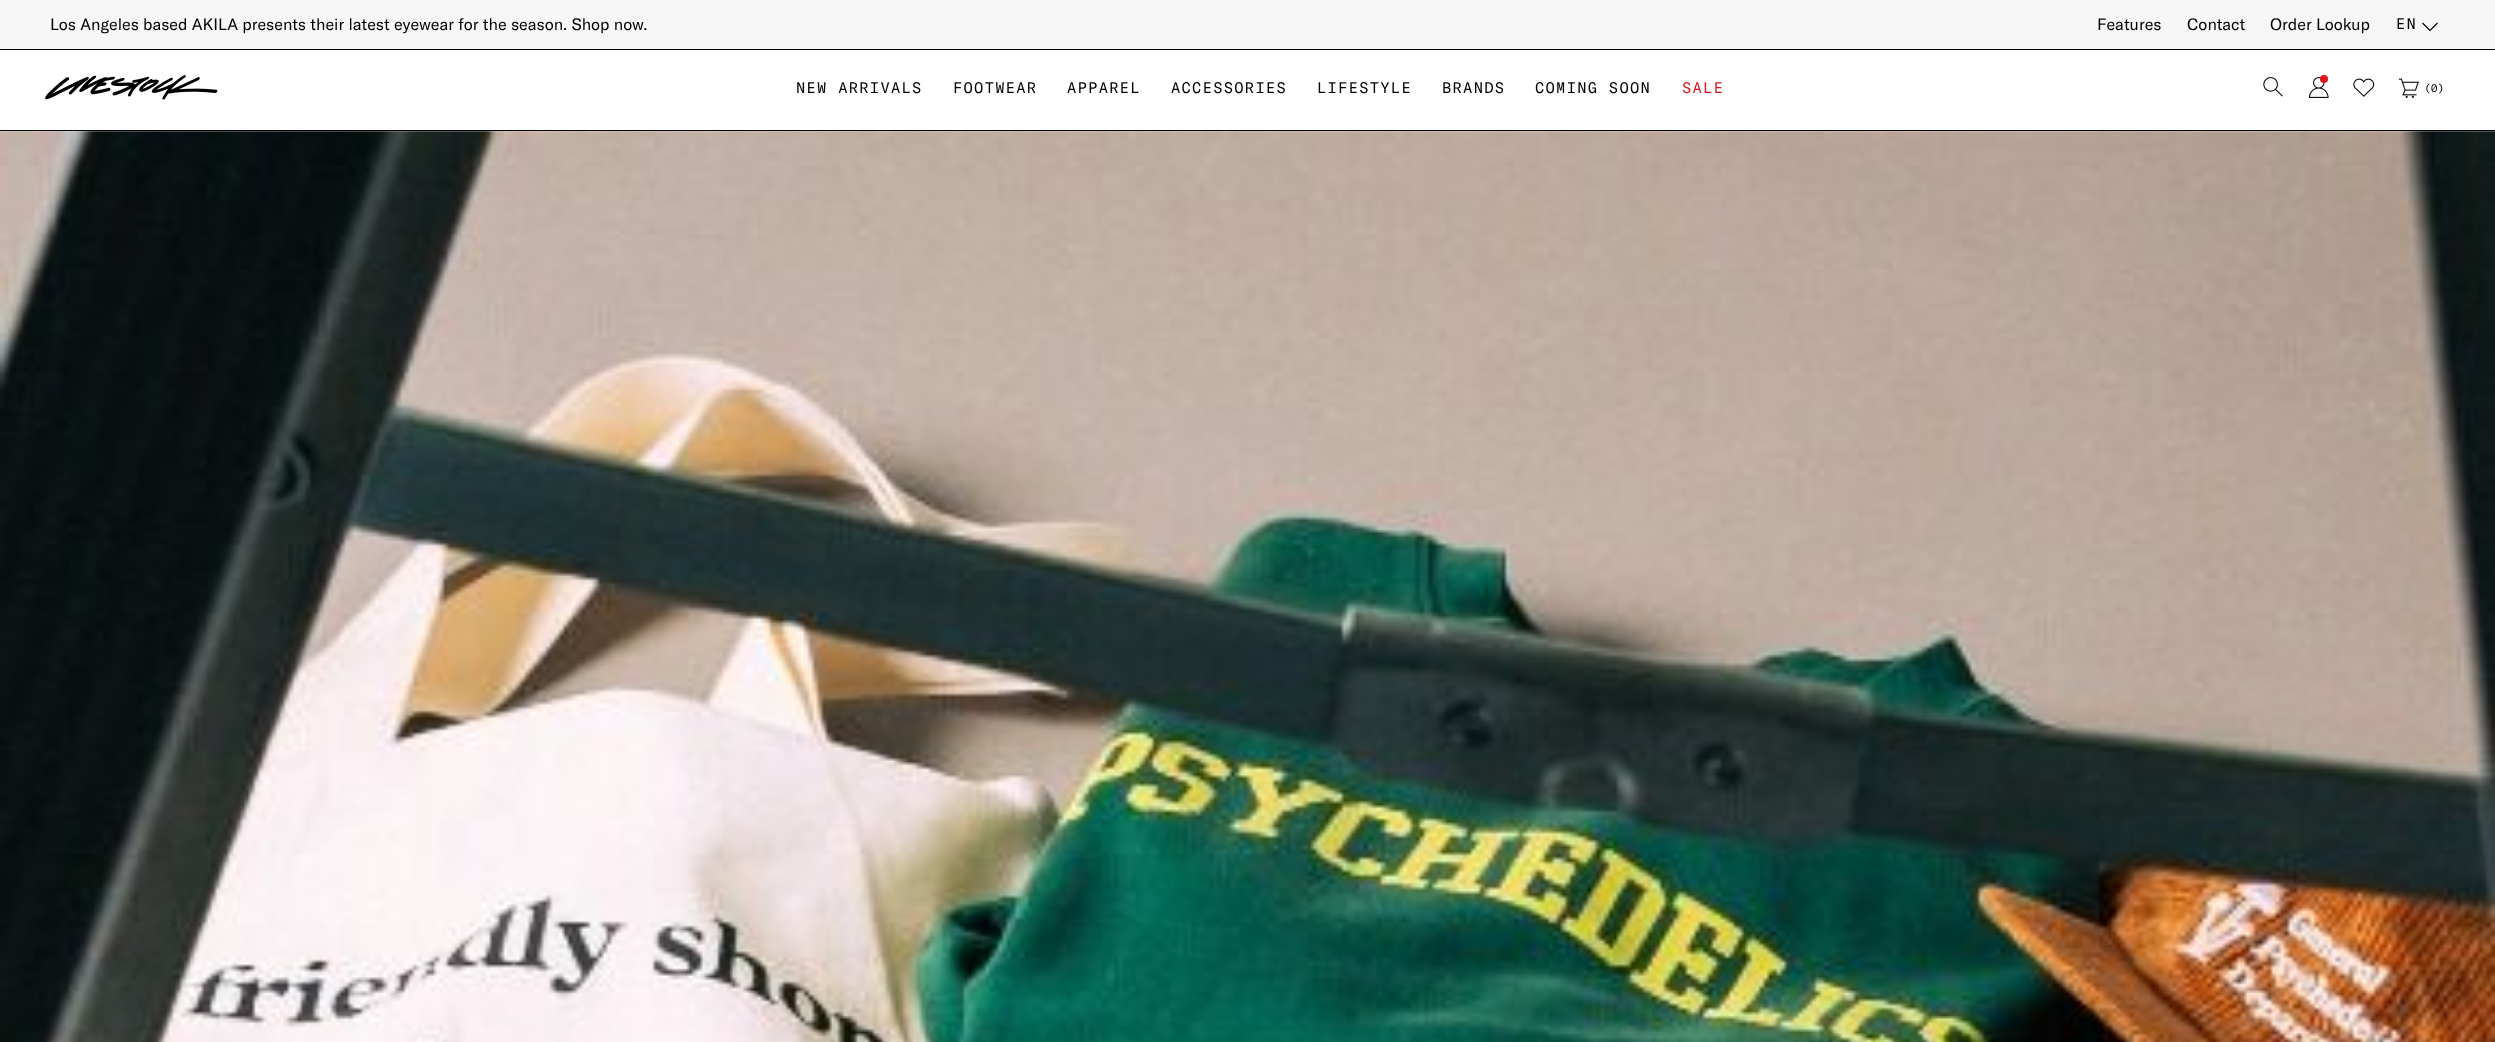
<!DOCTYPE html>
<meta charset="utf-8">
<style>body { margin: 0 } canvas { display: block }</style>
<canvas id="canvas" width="2495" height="1042"></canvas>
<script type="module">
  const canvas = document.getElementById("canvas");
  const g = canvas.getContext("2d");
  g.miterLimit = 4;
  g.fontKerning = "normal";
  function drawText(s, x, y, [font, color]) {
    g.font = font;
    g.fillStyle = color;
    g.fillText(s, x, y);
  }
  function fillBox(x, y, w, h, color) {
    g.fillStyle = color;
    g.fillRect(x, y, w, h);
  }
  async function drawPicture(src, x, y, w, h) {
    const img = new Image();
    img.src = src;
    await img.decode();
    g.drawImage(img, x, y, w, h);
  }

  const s1 = ["16.25px GT America", "#000000"];
  const s2 = ["15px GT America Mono", "#000000"];
  const s3 = ["15px GT America Mono", "#DC181E"];
  const s4 = ["11px GT America Mono", "#000000"];

  fillBox(0, 0, 2495, 1042, "#FFFFFF");
  fillBox(0, 0, 2495, 49, "#F7F7F7");
  fillBox(0, 49, 2495, 1, "#000000");
  drawText("Los Angeles based AKILA presents their latest eyewear for the season. Shop now.", 50, 30, s1);
  drawText("Features", 2097, 30, s1);
  drawText("Contact", 2187, 30, s1);
  drawText("Order Lookup", 2270, 30, s1);
  g.letterSpacing = "1.25px";
  drawText("EN", 2396, 29, s2);
  g.beginPath();
  g.moveTo(2422.5, 23);
  g.lineTo(2430, 30.5);
  g.lineTo(2437.5, 23);
  g.strokeStyle = "#000000";
  g.lineWidth = 1.2;
  g.stroke();
  fillBox(0, 130, 2495, 1, "#000000");
  await drawPicture("pic1.png", 45, 75, 173, 25);
  drawText("NEW ARRIVALS", 796, 93, s2);
  drawText("FOOTWEAR", 953, 93, s2);
  drawText("APPAREL", 1067, 93, s2);
  drawText("ACCESSORIES", 1171, 93, s2);
  drawText("LIFESTYLE", 1317, 93, s2);
  drawText("BRANDS", 1442, 93, s2);
  drawText("COMING SOON", 1535, 93, s2);
  drawText("SALE", 1682, 93, s3);
  await drawPicture("pic2.png", 2263, 77, 20, 20);
  await drawPicture("pic3.png", 2308, 77, 21, 21);
  g.beginPath();
  g.arc(2324, 79, 4, 0, Math.PI * 2);
  g.fill();
  await drawPicture("pic4.png", 2353, 78, 22, 19);
  await drawPicture("pic5.png", 2398, 78, 21, 20);
  g.letterSpacing = "0px";
  drawText("(0)", 2424, 92, s4);
  await drawPicture("pic6.png", 0, 131, 2495, 911);
</script>
